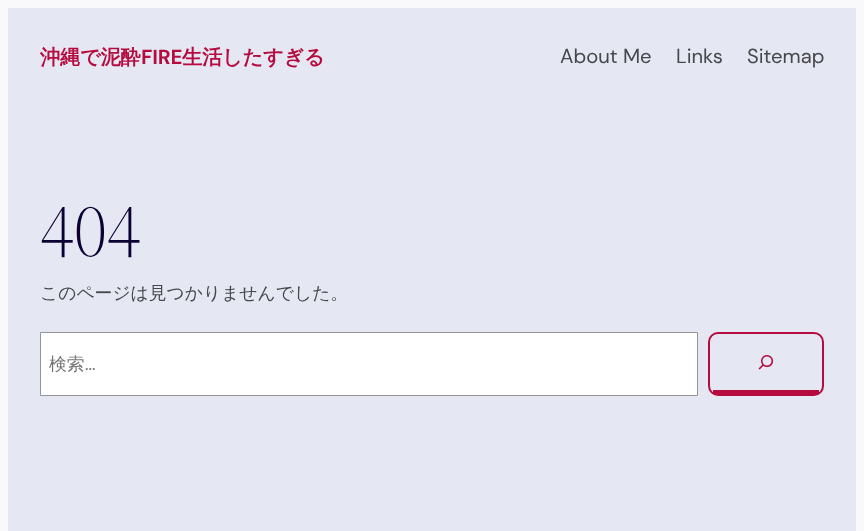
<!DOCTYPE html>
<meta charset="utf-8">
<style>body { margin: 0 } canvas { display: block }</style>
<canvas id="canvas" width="864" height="531"></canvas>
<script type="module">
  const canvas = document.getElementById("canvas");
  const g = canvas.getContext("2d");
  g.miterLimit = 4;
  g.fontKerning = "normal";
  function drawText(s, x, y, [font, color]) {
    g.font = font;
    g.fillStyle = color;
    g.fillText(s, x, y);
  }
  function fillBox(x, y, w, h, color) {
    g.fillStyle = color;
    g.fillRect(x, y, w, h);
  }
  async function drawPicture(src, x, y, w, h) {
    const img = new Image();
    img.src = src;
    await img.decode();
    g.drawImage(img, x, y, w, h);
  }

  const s1 = ["bold 20.25px WenQuanYi Zen Hei", "#B50B3E"];
  const s2 = ["bold 20.25px DM Sans", "#B50B3E"];
  const s3 = ["20.25px DM Sans", "#47484B"];
  const s4 = ["300 74px 'Source Serif 4'", "#0B0033"];
  const s5 = ["500 17.8px WenQuanYi Zen Hei", "#47484B"];
  const s6 = ["500 17.8px WenQuanYi Zen Hei", "#757575"];
  const s7 = ["17.8px DM Sans", "#757575"];

  fillBox(0, 0, 864, 531, "#E5E7F2");
  g.strokeStyle = "#F9F9FB";
  g.lineWidth = 8;
  g.strokeRect(4, 4, 856, 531);
  g.letterSpacing = "-0.25px";
  drawText("沖縄で泥酔", 40, 64, s1);
  drawText("FIRE", 141, 64, s2);
  drawText("生活したすぎる", 182, 64, s1);
  g.letterSpacing = "0px";
  drawText("About Me", 560, 63, s3);
  drawText("Links", 676, 63, s3);
  drawText("Sitemap", 747, 63, s3);
  g.letterSpacing = "-1px";
  drawText("404", 40, 256, s4);
  g.letterSpacing = "0px";
  drawText("このページは見つかりませんでした。", 40, 299, s5);
  g.fillStyle = "#FFFFFF";
  g.beginPath();
  g.rect(40.5, 332.5, 657, 63);
  g.fill();
  g.strokeStyle = "#949494";
  g.lineWidth = 1;
  g.stroke();
  drawText("検索", 49, 370, s6);
  drawText("...", 85, 370, s7);
  g.beginPath();
  g.roundRect(709, 333, 114, 62, 9);
  g.strokeStyle = "#B50B3E";
  g.lineWidth = 2;
  g.stroke();
  fillBox(713, 390, 106, 4, "#B50B3E");
  await drawPicture("pic1.png", 758, 355, 16, 15);
</script>
